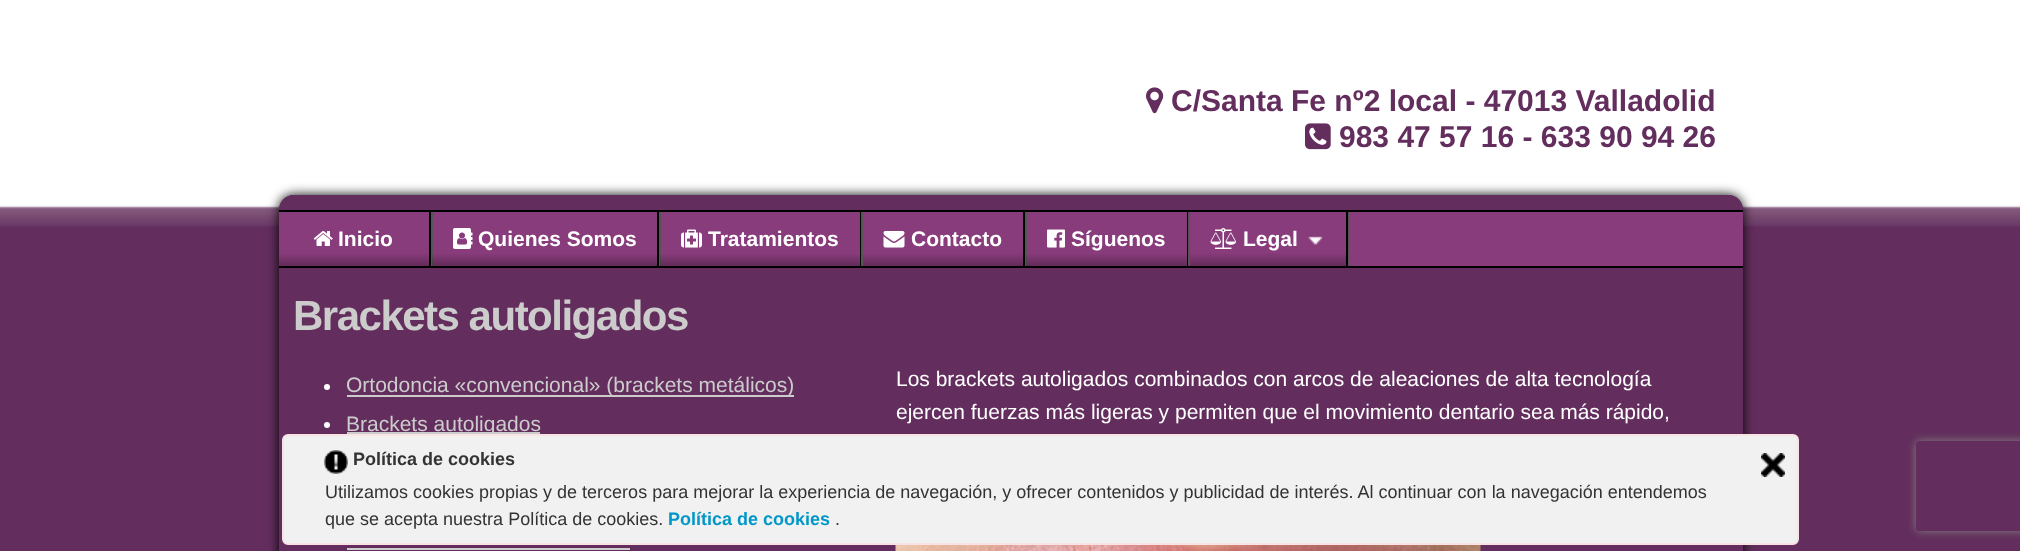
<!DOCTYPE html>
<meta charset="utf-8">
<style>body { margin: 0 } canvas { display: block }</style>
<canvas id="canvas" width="2020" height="551"></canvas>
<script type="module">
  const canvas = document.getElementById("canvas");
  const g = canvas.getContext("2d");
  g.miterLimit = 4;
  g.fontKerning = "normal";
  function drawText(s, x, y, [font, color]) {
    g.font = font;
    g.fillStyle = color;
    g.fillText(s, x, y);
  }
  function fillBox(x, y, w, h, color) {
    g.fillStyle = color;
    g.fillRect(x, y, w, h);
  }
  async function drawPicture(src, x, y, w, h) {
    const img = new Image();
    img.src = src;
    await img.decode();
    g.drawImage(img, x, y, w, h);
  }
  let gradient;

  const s1 = ["bold 30px Liberation Sans", "#632E5D"];
  const s2 = ["bold 21px Liberation Sans", "#FFFFFF"];
  const s3 = ["bold 42px Liberation Sans", "#CCCCCC"];
  const s4 = ["21px Liberation Sans", "#CCCCCC"];
  const s5 = ["21px Liberation Sans", "#FFFFFF"];
  const s6 = ["bold 18px Liberation Sans", "#333333"];
  const s7 = ["18px Liberation Sans", "#333333"];
  const s8 = ["bold 18px Liberation Sans", "#0097C8"];

  fillBox(0, 0, 2020, 551, "#632E5D");
  await drawPicture("pic1.png", 0, 0, 2020, 240);
  await drawPicture("pic2.png", 1146, 87, 18, 27);
  drawText("C/Santa Fe nº2 local - 47013 Valladolid", 1171, 111, s1);
  await drawPicture("pic3.png", 1305, 123, 26, 27);
  drawText("983 47 57 16 - 633 90 94 26", 1339, 147, s1);
  g.fillStyle = "#000000";
  g.filter = "blur(6px)";
  g.beginPath();
  g.roundRect(279, 195, 1464, 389, 15);
  g.fill();
  g.filter = "none";
  g.fillStyle = "#632E5D";
  g.beginPath();
  g.moveTo(294, 195);
  g.lineTo(1728, 195);
  g.bezierCurveTo(1736.5, 195, 1743, 201.5, 1743, 210);
  g.lineTo(1743, 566);
  g.lineTo(279, 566);
  g.lineTo(279, 210);
  g.bezierCurveTo(279, 201.5, 285.5, 195, 294, 195);
  g.closePath();
  g.fill();
  g.beginPath();
  g.roundRect(279, 195, 1464, 15, [15, 15, 0, 0]);
  g.fill();
  fillBox(433, 212, 1310, 54, "#893C7C");
  fillBox(279, 210, 1464, 2, "#000000");
  fillBox(279, 266, 1464, 2, "#000000");
  fillBox(1348, 212, 1, 54, "#555555");
  fillBox(429, 212, 2, 54, "#000000");
  gradient = g.createLinearGradient(354, 212, 354, 266);
  gradient.addColorStop(0.75, "#893C7C");
  gradient.addColorStop(1, "#632B59");
  g.fillStyle = gradient;
  g.fillRect(279, 212, 150, 54);
  await drawPicture("pic4.png", 313, 231, 20, 15);
  drawText("Inicio", 338, 246, s2);
  fillBox(657, 212, 2, 54, "#000000");
  fillBox(431, 212, 2, 54, "#555555");
  gradient = g.createLinearGradient(545, 212, 545, 266);
  gradient.addColorStop(0.75, "rgba(0, 0, 0, 0)");
  gradient.addColorStop(1, "rgba(0, 0, 0, 0.28)");
  g.fillStyle = gradient;
  g.fillRect(432, 254, 225, 12);
  await drawPicture("pic5.png", 453, 228, 20, 21);
  drawText("Quienes Somos", 478, 246, s2);
  fillBox(860, 212, 1, 54, "#000000");
  fillBox(659, 212, 2, 54, "#555555");
  gradient = g.createLinearGradient(760, 212, 760, 266);
  gradient.addColorStop(0.75, "rgba(0, 0, 0, 0)");
  gradient.addColorStop(1, "rgba(0, 0, 0, 0.28)");
  g.fillStyle = gradient;
  g.fillRect(660, 254, 200, 12);
  await drawPicture("pic6.png", 681, 229, 21, 19);
  drawText("Tratamientos", 708, 246, s2);
  fillBox(1023, 212, 2, 54, "#000000");
  fillBox(861, 212, 2, 54, "#555555");
  gradient = g.createLinearGradient(943, 212, 943, 266);
  gradient.addColorStop(0.75, "#893C7C");
  gradient.addColorStop(1, "#632B59");
  g.fillStyle = gradient;
  g.fillRect(863, 253, 160, 13);
  await drawPicture("pic7.png", 883, 231, 22, 17);
  drawText("Contacto", 911, 246, s2);
  fillBox(1187, 212, 1, 54, "#000000");
  fillBox(1025, 212, 2, 54, "#555555");
  gradient = g.createLinearGradient(1106, 212, 1106, 266);
  gradient.addColorStop(0.75, "rgba(0, 0, 0, 0)");
  gradient.addColorStop(1, "rgba(0, 0, 0, 0.28)");
  g.fillStyle = gradient;
  g.fillRect(1026, 254, 161, 12);
  await drawPicture("pic8.png", 1047, 229, 18, 19);
  drawText("Síguenos", 1071, 246, s2);
  fillBox(1346, 212, 2, 54, "#000000");
  fillBox(1188, 212, 2, 54, "#555555");
  gradient = g.createLinearGradient(1268, 212, 1268, 266);
  gradient.addColorStop(0.75, "#893C7C");
  gradient.addColorStop(1, "#632B59");
  g.fillStyle = gradient;
  g.fillRect(1190, 253, 156, 13);
  await drawPicture("pic9.png", 1210, 228, 26, 21);
  drawText("Legal", 1243, 246, s2);
  await drawPicture("pic10.png", 1308, 236, 15, 9);
  g.letterSpacing = "-1.5px";
  drawText("Brackets autoligados", 293, 330, s3);
  g.fillStyle = "#FFFFFF";
  g.beginPath();
  g.arc(327, 387, 3, 0, Math.PI * 2);
  g.fill();
  fillBox(347, 395, 447, 2, "#CCCCCC");
  g.letterSpacing = "0px";
  drawText("Ortodoncia «convencional» (brackets metálicos)", 346, 392, s4);
  g.fillStyle = "#FFFFFF";
  g.beginPath();
  g.arc(327, 425, 3, 0, Math.PI * 2);
  g.fill();
  fillBox(347, 432, 193, 2, "#CCCCCC");
  drawText("Brackets autoligados", 346, 431, s4);
  fillBox(347, 548, 283, 2, "#CCCCCC");
  drawText("Los brackets autoligados combinados con arcos de aleaciones de alta tecnología", 896, 386, s5);
  drawText("ejercen fuerzas más ligeras y permiten que el movimiento dentario sea más rápido,", 896, 419, s5);
  await drawPicture("pic11.png", 895, 545, 586, 6);
  g.fillStyle = "#F1F1F1";
  g.beginPath();
  g.roundRect(283, 435, 1515, 109, 5);
  g.fill();
  g.strokeStyle = "#FAE3E5";
  g.lineWidth = 2;
  g.stroke();
  await drawPicture("pic12.png", 324, 450, 24, 24);
  drawText("Política de cookies", 353, 465, s6);
  await drawPicture("pic13.png", 1761, 453, 24, 24);
  drawText("Utilizamos cookies propias y de terceros para mejorar la experiencia de navegación, y ofrecer contenidos y publicidad de interés. Al continuar con la navegación entendemos", 325, 498, s7);
  drawText("que se acepta nuestra Política de cookies.", 325, 525, s7);
  drawText("Política de cookies", 668, 525, s8);
  drawText(".", 835, 525, s7);
  g.save();
  g.beginPath();
  g.moveTo(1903, 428);
  g.lineTo(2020, 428);
  g.lineTo(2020, 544);
  g.lineTo(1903, 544);
  g.closePath();
  g.moveTo(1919, 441);
  g.lineTo(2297, 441);
  g.bezierCurveTo(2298.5, 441, 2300, 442.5, 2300, 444);
  g.lineTo(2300, 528);
  g.bezierCurveTo(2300, 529.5, 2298.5, 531, 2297, 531);
  g.lineTo(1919, 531);
  g.bezierCurveTo(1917.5, 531, 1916, 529.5, 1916, 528);
  g.lineTo(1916, 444);
  g.bezierCurveTo(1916, 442.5, 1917.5, 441, 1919, 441);
  g.closePath();
  g.clip("evenodd");
  g.fillStyle = "#808080";
  g.filter = "blur(4px)";
  g.beginPath();
  g.roundRect(1916, 441, 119, 90, 3);
  g.fill();
  g.filter = "none";
  g.restore();
</script>
